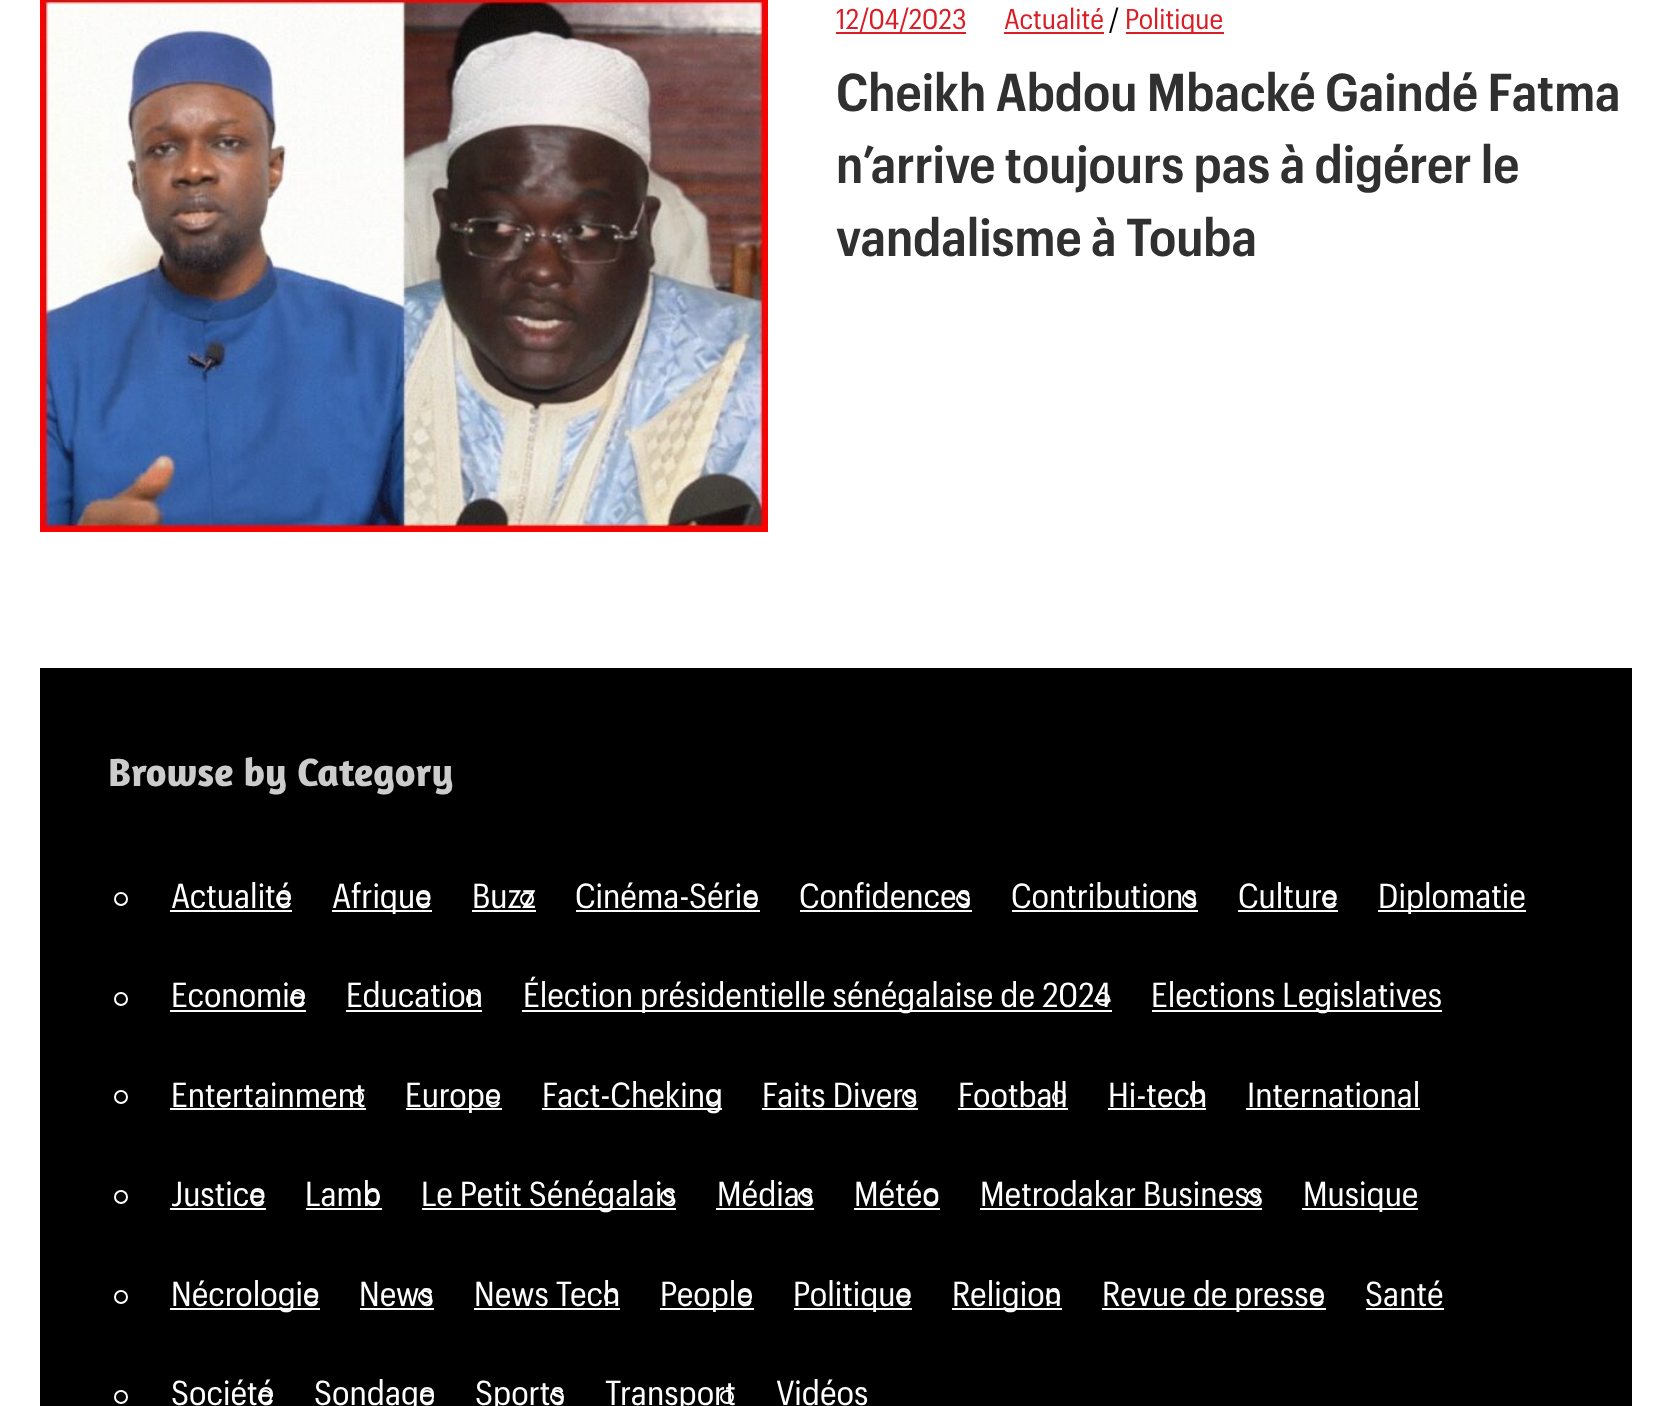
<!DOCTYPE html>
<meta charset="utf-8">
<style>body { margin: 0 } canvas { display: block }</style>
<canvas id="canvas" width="1672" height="1406"></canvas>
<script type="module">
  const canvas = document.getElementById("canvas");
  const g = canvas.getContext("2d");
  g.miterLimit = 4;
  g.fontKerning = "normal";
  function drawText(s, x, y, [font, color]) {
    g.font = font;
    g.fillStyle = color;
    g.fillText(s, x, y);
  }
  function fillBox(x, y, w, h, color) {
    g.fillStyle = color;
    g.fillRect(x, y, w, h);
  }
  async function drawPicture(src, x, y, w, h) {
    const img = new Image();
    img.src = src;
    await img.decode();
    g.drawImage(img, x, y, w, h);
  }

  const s1 = ["28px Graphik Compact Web", "#DA1E25"];
  const s2 = ["28px Graphik Compact Web", "#000000"];
  const s3 = ["600 52px Graphik Compact Web", "#303030"];
  const s4 = ["bold 40px Amaranth", "#CCCCCC"];
  const s5 = ["34px Graphik Compact Web", "#FFFFFF"];

  fillBox(0, 0, 1672, 1406, "#FFFFFF");
  await drawPicture("pic1.png", 40, 0, 728, 532);
  fillBox(836, 32, 130, 2, "#DA1E25");
  drawText("12/04/2023", 836, 29, s1);
  drawText("Actualité", 1004, 29, s1);
  fillBox(1004, 32, 100, 2, "#DA1E25");
  drawText("/", 1109, 29, s2);
  fillBox(1126, 32, 98, 2, "#DA1E25");
  drawText("Politique", 1125, 29, s1);
  drawText("Cheikh Abdou Mbacké Gaindé Fatma", 836, 111, s3);
  drawText("n’arrive toujours pas à digérer le", 836, 183, s3);
  drawText("vandalisme à Touba", 836, 256, s3);
  fillBox(40, 668, 1592, 738, "#000000");
  drawText("Browse by Category", 108, 786, s4);
  g.beginPath();
  g.arc(121, 899, 6, 0, Math.PI * 2);
  g.strokeStyle = "#FFFFFF";
  g.lineWidth = 2;
  g.stroke();
  drawText("Actualité", 171, 908, s5);
  fillBox(170, 910, 122, 2, "#FFFFFF");
  g.beginPath();
  g.arc(283, 899, 6, 0, Math.PI * 2);
  g.stroke();
  fillBox(332, 910, 100, 2, "#FFFFFF");
  drawText("Afrique", 332, 908, s5);
  g.beginPath();
  g.arc(423, 899, 6, 0, Math.PI * 2);
  g.stroke();
  drawText("Buzz", 472, 908, s5);
  fillBox(472, 910, 64, 2, "#FFFFFF");
  g.beginPath();
  g.arc(527, 899, 6, 0, Math.PI * 2);
  g.stroke();
  drawText("Cinéma-Série", 575, 908, s5);
  fillBox(576, 910, 184, 2, "#FFFFFF");
  g.beginPath();
  g.arc(751, 899, 6, 0, Math.PI * 2);
  g.stroke();
  drawText("Confidences", 799, 908, s5);
  fillBox(800, 910, 172, 2, "#FFFFFF");
  g.beginPath();
  g.arc(963, 899, 6, 0, Math.PI * 2);
  g.stroke();
  drawText("Contributions", 1011, 908, s5);
  fillBox(1012, 910, 186, 2, "#FFFFFF");
  g.beginPath();
  g.arc(1189, 899, 6, 0, Math.PI * 2);
  g.stroke();
  drawText("Culture", 1238, 908, s5);
  fillBox(1238, 910, 100, 2, "#FFFFFF");
  g.beginPath();
  g.arc(1329, 899, 6, 0, Math.PI * 2);
  g.stroke();
  fillBox(1378, 910, 148, 2, "#FFFFFF");
  drawText("Diplomatie", 1378, 908, s5);
  g.beginPath();
  g.arc(121, 999, 6, 0, Math.PI * 2);
  g.stroke();
  drawText("Economie", 171, 1007, s5);
  fillBox(170, 1010, 136, 2, "#FFFFFF");
  g.beginPath();
  g.arc(297, 999, 6, 0, Math.PI * 2);
  g.stroke();
  drawText("Education", 346, 1007, s5);
  fillBox(346, 1010, 136, 2, "#FFFFFF");
  g.beginPath();
  g.arc(473, 999, 6, 0, Math.PI * 2);
  g.stroke();
  fillBox(522, 1010, 590, 2, "#FFFFFF");
  drawText("Élection présidentielle sénégalaise de 2024", 523, 1007, s5);
  g.beginPath();
  g.arc(1103, 999, 6, 0, Math.PI * 2);
  g.stroke();
  fillBox(1152, 1010, 290, 2, "#FFFFFF");
  drawText("Elections Legislatives", 1151, 1007, s5);
  g.beginPath();
  g.arc(121, 1097, 6, 0, Math.PI * 2);
  g.stroke();
  drawText("Entertainment", 171, 1107, s5);
  fillBox(170, 1108, 196, 2, "#FFFFFF");
  g.beginPath();
  g.arc(357, 1097, 6, 0, Math.PI * 2);
  g.stroke();
  fillBox(406, 1108, 96, 2, "#FFFFFF");
  drawText("Europe", 405, 1107, s5);
  g.beginPath();
  g.arc(493, 1097, 6, 0, Math.PI * 2);
  g.stroke();
  fillBox(542, 1108, 180, 2, "#FFFFFF");
  drawText("Fact-Cheking", 542, 1107, s5);
  g.beginPath();
  g.arc(713, 1097, 6, 0, Math.PI * 2);
  g.stroke();
  drawText("Faits Divers", 762, 1107, s5);
  fillBox(762, 1108, 156, 2, "#FFFFFF");
  g.beginPath();
  g.arc(909, 1097, 6, 0, Math.PI * 2);
  g.stroke();
  drawText("Football", 958, 1107, s5);
  fillBox(958, 1108, 110, 2, "#FFFFFF");
  g.beginPath();
  g.arc(1059, 1097, 6, 0, Math.PI * 2);
  g.stroke();
  drawText("Hi-tech", 1108, 1107, s5);
  fillBox(1108, 1108, 98, 2, "#FFFFFF");
  g.beginPath();
  g.arc(1197, 1097, 6, 0, Math.PI * 2);
  g.stroke();
  drawText("International", 1247, 1107, s5);
  fillBox(1246, 1108, 174, 2, "#FFFFFF");
  g.beginPath();
  g.arc(121, 1197, 6, 0, Math.PI * 2);
  g.stroke();
  drawText("Justice", 171, 1206, s5);
  fillBox(170, 1208, 96, 2, "#FFFFFF");
  g.beginPath();
  g.arc(257, 1197, 6, 0, Math.PI * 2);
  g.stroke();
  drawText("Lamb", 305, 1206, s5);
  fillBox(306, 1208, 76, 2, "#FFFFFF");
  g.beginPath();
  g.arc(373, 1197, 6, 0, Math.PI * 2);
  g.stroke();
  fillBox(422, 1208, 254, 2, "#FFFFFF");
  drawText("Le Petit Sénégalais", 421, 1206, s5);
  g.beginPath();
  g.arc(667, 1197, 6, 0, Math.PI * 2);
  g.stroke();
  drawText("Médias", 717, 1206, s5);
  fillBox(716, 1208, 98, 2, "#FFFFFF");
  g.beginPath();
  g.arc(805, 1197, 6, 0, Math.PI * 2);
  g.stroke();
  drawText("Météo", 854, 1206, s5);
  fillBox(854, 1208, 86, 2, "#FFFFFF");
  g.beginPath();
  g.arc(931, 1197, 6, 0, Math.PI * 2);
  g.stroke();
  drawText("Metrodakar Business", 980, 1206, s5);
  fillBox(980, 1208, 282, 2, "#FFFFFF");
  g.beginPath();
  g.arc(1253, 1197, 6, 0, Math.PI * 2);
  g.stroke();
  fillBox(1302, 1208, 116, 2, "#FFFFFF");
  drawText("Musique", 1303, 1206, s5);
  g.beginPath();
  g.arc(121, 1297, 6, 0, Math.PI * 2);
  g.stroke();
  fillBox(170, 1308, 150, 2, "#FFFFFF");
  drawText("Nécrologie", 171, 1306, s5);
  g.beginPath();
  g.arc(311, 1297, 6, 0, Math.PI * 2);
  g.stroke();
  drawText("News", 359, 1306, s5);
  fillBox(360, 1308, 74, 2, "#FFFFFF");
  g.beginPath();
  g.arc(425, 1297, 6, 0, Math.PI * 2);
  g.stroke();
  drawText("News Tech", 474, 1306, s5);
  fillBox(474, 1308, 146, 2, "#FFFFFF");
  g.beginPath();
  g.arc(611, 1297, 6, 0, Math.PI * 2);
  g.stroke();
  fillBox(660, 1308, 94, 2, "#FFFFFF");
  drawText("People", 660, 1306, s5);
  g.beginPath();
  g.arc(745, 1297, 6, 0, Math.PI * 2);
  g.stroke();
  fillBox(794, 1308, 118, 2, "#FFFFFF");
  drawText("Politique", 793, 1306, s5);
  g.beginPath();
  g.arc(903, 1297, 6, 0, Math.PI * 2);
  g.stroke();
  fillBox(952, 1308, 110, 2, "#FFFFFF");
  drawText("Religion", 952, 1306, s5);
  g.beginPath();
  g.arc(1053, 1297, 6, 0, Math.PI * 2);
  g.stroke();
  fillBox(1102, 1308, 224, 2, "#FFFFFF");
  drawText("Revue de presse", 1102, 1306, s5);
  g.beginPath();
  g.arc(1317, 1297, 6, 0, Math.PI * 2);
  g.stroke();
  drawText("Santé", 1365, 1306, s5);
  fillBox(1366, 1308, 78, 2, "#FFFFFF");
  g.beginPath();
  g.arc(121, 1397, 6, 0, Math.PI * 2);
  g.stroke();
  drawText("Société", 171, 1405, s5);
  g.beginPath();
  g.arc(265, 1397, 6, 0, Math.PI * 2);
  g.stroke();
  drawText("Sondage", 314, 1405, s5);
  g.beginPath();
  g.arc(427, 1397, 6, 0, Math.PI * 2);
  g.stroke();
  drawText("Sports", 475, 1405, s5);
  g.beginPath();
  g.arc(557, 1397, 6, 0, Math.PI * 2);
  g.stroke();
  drawText("Transport", 605, 1405, s5);
  g.beginPath();
  g.arc(727, 1397, 6, 0, Math.PI * 2);
  g.stroke();
  drawText("Vidéos", 776, 1405, s5);
</script>
